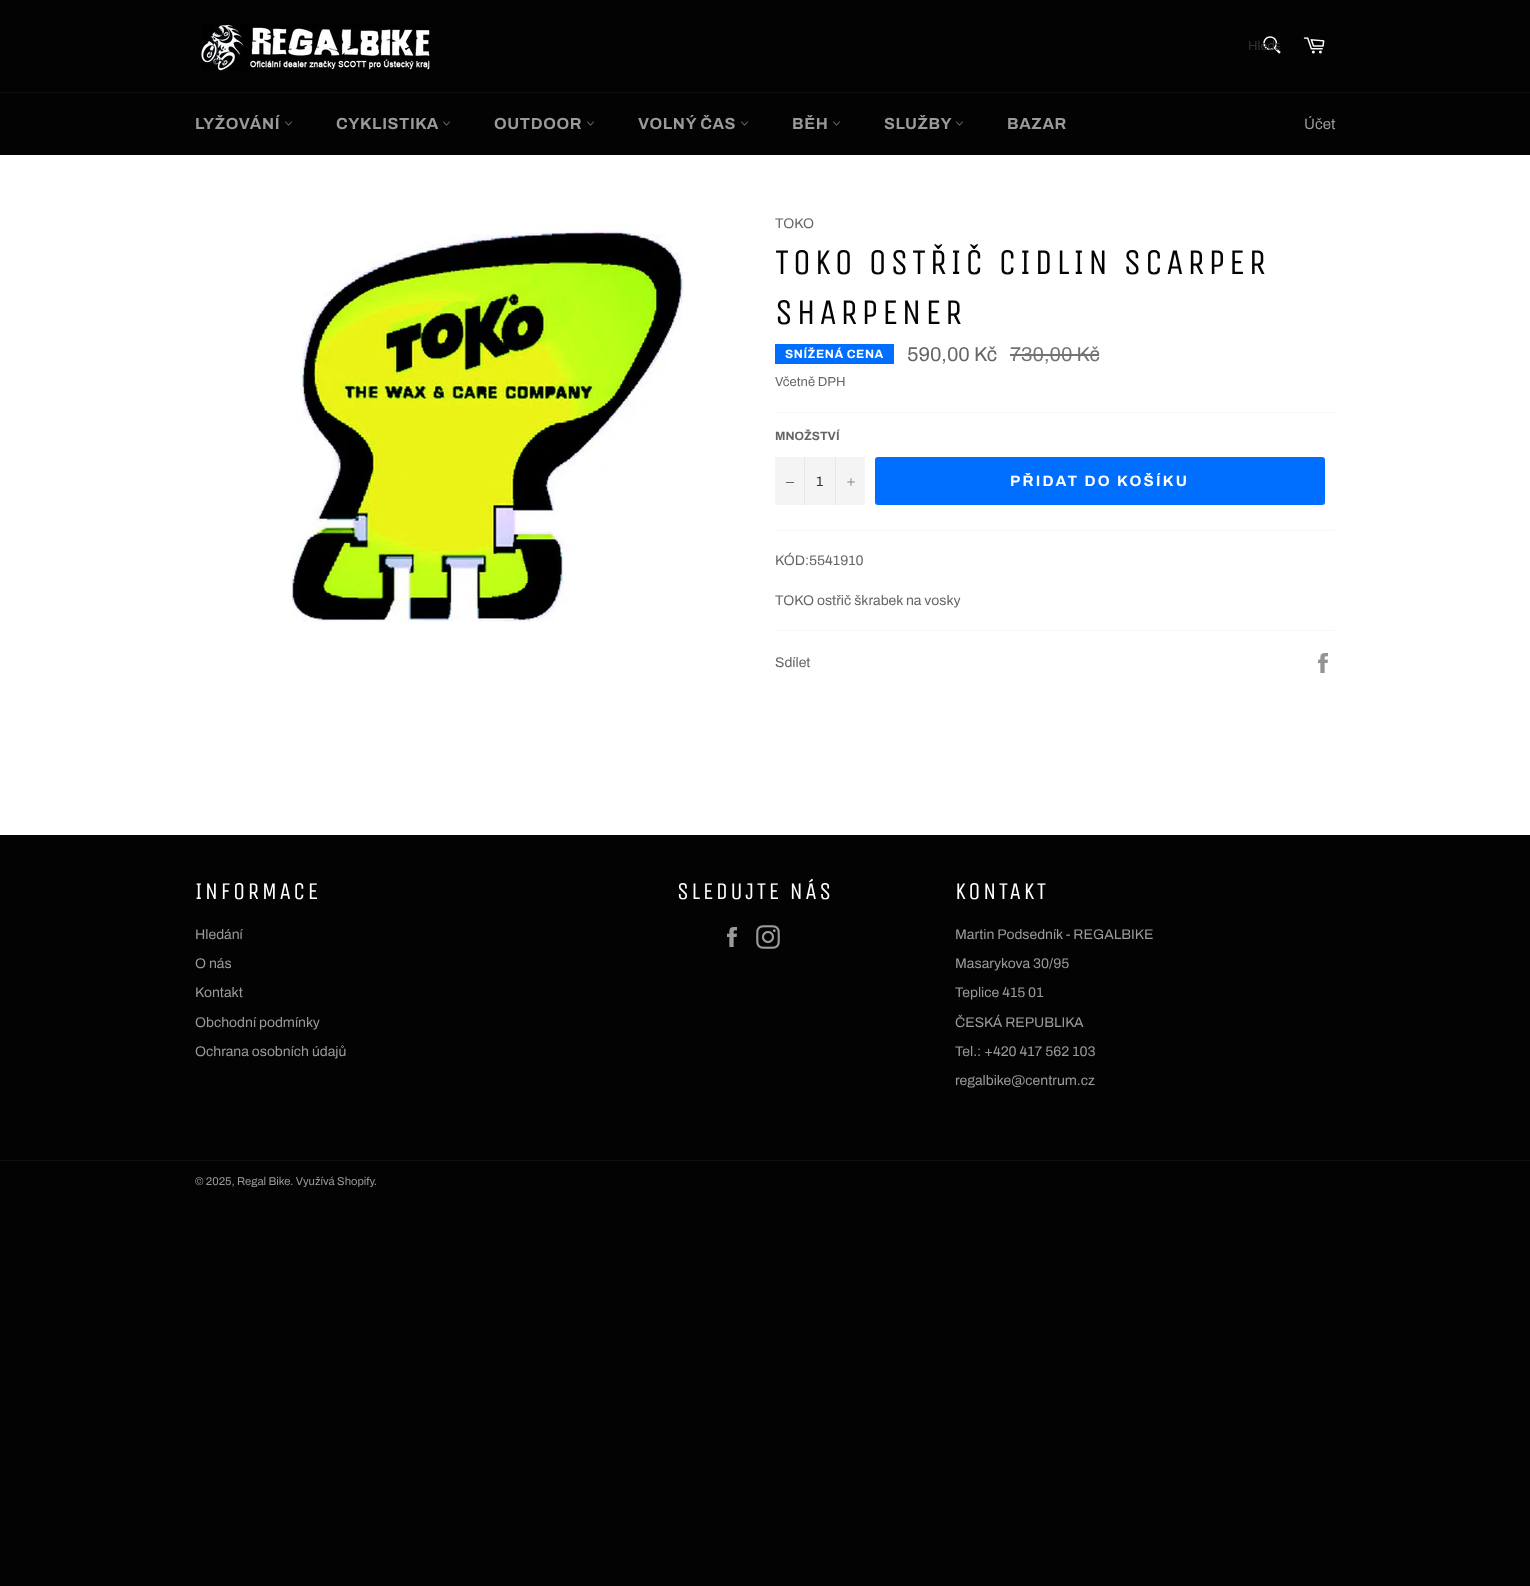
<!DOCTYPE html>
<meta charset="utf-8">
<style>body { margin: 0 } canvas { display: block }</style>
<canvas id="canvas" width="1530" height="1586"></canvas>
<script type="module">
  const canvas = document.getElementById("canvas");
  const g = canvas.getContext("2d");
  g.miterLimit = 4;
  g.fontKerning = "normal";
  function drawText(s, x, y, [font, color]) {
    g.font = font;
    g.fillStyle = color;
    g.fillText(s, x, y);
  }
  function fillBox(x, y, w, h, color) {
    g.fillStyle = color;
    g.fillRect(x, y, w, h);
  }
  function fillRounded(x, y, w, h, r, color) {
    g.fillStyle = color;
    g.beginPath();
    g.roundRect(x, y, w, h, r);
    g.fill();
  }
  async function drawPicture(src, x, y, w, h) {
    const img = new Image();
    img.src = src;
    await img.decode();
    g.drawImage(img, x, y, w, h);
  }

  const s1 = ["13px Archivo", "#333333"];
  const s2 = ["bold 16px Archivo", "#9A9A9A"];
  const s3 = ["15px Archivo", "#9A9A9A"];
  const s4 = ["14px Archivo", "#666666"];
  const s5 = ["36px Unica One", "#030303"];
  const s6 = ["bold 12px Archivo", "#FFFFFF"];
  const s7 = ["20px Archivo", "#666666"];
  const s8 = ["20px Archivo", "#737373"];
  const s9 = ["13px Archivo", "#666666"];
  const s10 = ["bold 12px Archivo", "#666666"];
  const s11 = ["14px Archivo", "#333333"];
  const s12 = ["bold 15px Archivo", "#FFFFFF"];
  const s13 = ["24px Unica One", "#FFFFFF"];
  const s14 = ["14px Archivo", "#9A9A9A"];
  const s15 = ["11.25px Archivo", "#9A9A9A"];

  fillBox(0, 0, 1530, 1586, "#030303");
  await drawPicture("pic1.png", 201, 24, 229, 47);
  await drawPicture("pic2.png", 1263, 36, 18, 18);
  g.save();
  g.beginPath();
  g.rect(1248, 39, 32, 14);
  g.clip();
  drawText("Hleda", 1248, 50, s1);
  g.restore();
  await drawPicture("pic3.png", 1303, 37, 22, 17);
  fillBox(0, 92, 1530, 1, "#101010");
  g.letterSpacing = "0.6px";
  drawText("LYŽOVÁNÍ", 195, 129, s2);
  await drawPicture("pic4.png", 285, 121, 7, 5);
  drawText("CYKLISTIKA", 336, 129, s2);
  await drawPicture("pic4.png", 443, 121, 7, 5);
  drawText("OUTDOOR", 494, 129, s2);
  await drawPicture("pic4.png", 587, 121, 7, 5);
  drawText("VOLNÝ ČAS", 638, 129, s2);
  await drawPicture("pic4.png", 741, 121, 7, 5);
  drawText("BĚH", 792, 129, s2);
  await drawPicture("pic4.png", 833, 121, 7, 5);
  drawText("SLUŽBY", 884, 129, s2);
  await drawPicture("pic4.png", 956, 121, 7, 5);
  drawText("BAZAR", 1007, 129, s2);
  g.letterSpacing = "0px";
  drawText("Účet", 1304, 129, s3);
  fillBox(0, 155, 1530, 680, "#FFFFFF");
  await drawPicture("pic5.png", 290, 224, 394, 398);
  drawText("TOKO", 775, 228, s4);
  g.letterSpacing = "3.6px";
  drawText("TOKO OSTŘIČ CIDLIN SCARPER", 775, 274, s5);
  drawText("SHARPENER", 775, 324, s5);
  fillBox(775, 344, 119, 20, "#006EFF");
  g.letterSpacing = "0.6px";
  drawText("SNÍŽENÁ CENA", 785, 358, s6);
  g.letterSpacing = "0px";
  drawText("590,00 Kč", 907, 361, s7);
  drawText("730,00 Kč", 1010, 361, s8);
  fillBox(1010, 354, 89, 2, "#737373");
  drawText("Včetně DPH", 775, 386, s9);
  fillBox(775, 412, 560, 1, "#F7F7F7");
  drawText("MNOŽSTVÍ", 775, 440, s10);
  fillBox(775, 457, 90, 48, "#F4F4F4");
  fillBox(804, 457, 1, 48, "#E7E7E7");
  fillBox(786, 482, 8, 1, "#666666");
  drawText("1", 816, 486, s11);
  fillBox(835, 457, 1, 48, "#E7E7E7");
  await drawPicture("pic6.png", 847, 478, 8, 8);
  fillRounded(875, 457, 450, 48, 3, "#006EFF");
  g.letterSpacing = "2.25px";
  drawText("PŘIDAT DO KOŠÍKU", 1010, 486, s12);
  fillBox(775, 530, 560, 1, "#F7F7F7");
  g.letterSpacing = "0px";
  drawText("KÓD:5541910", 775, 565, s4);
  drawText("TOKO ostřič škrabek na vosky", 775, 605, s4);
  fillBox(775, 630, 560, 1, "#F7F7F7");
  drawText("Sdílet", 775, 667, s4);
  await drawPicture("pic7.png", 1318, 653, 10, 20);
  g.letterSpacing = "2.4px";
  drawText("INFORMACE", 195, 899, s13);
  g.letterSpacing = "0px";
  drawText("Hledání", 195, 939, s14);
  drawText("O nás", 195, 968, s14);
  drawText("Kontakt", 195, 997, s14);
  drawText("Obchodní podmínky", 195, 1027, s14);
  drawText("Ochrana osobních údajů", 195, 1056, s14);
  g.letterSpacing = "2.4px";
  drawText("SLEDUJTE NÁS", 677, 899, s13);
  await drawPicture("pic8.png", 727, 927, 10, 20);
  await drawPicture("pic9.png", 756, 925, 24, 24);
  drawText("KONTAKT", 955, 899, s13);
  g.letterSpacing = "0px";
  drawText("Martin Podsedník - REGALBIKE", 955, 939, s14);
  drawText("Masarykova 30/95", 955, 968, s14);
  drawText("Teplice 415 01", 955, 997, s14);
  drawText("ČESKÁ REPUBLIKA", 955, 1027, s14);
  drawText("Tel.: +420 417 562 103", 955, 1056, s14);
  drawText("regalbike@centrum.cz", 955, 1085, s14);
  fillBox(0, 1160, 1530, 1, "#101010");
  drawText("© 2025, Regal Bike. Využívá Shopify.", 195, 1185, s15);
</script>
